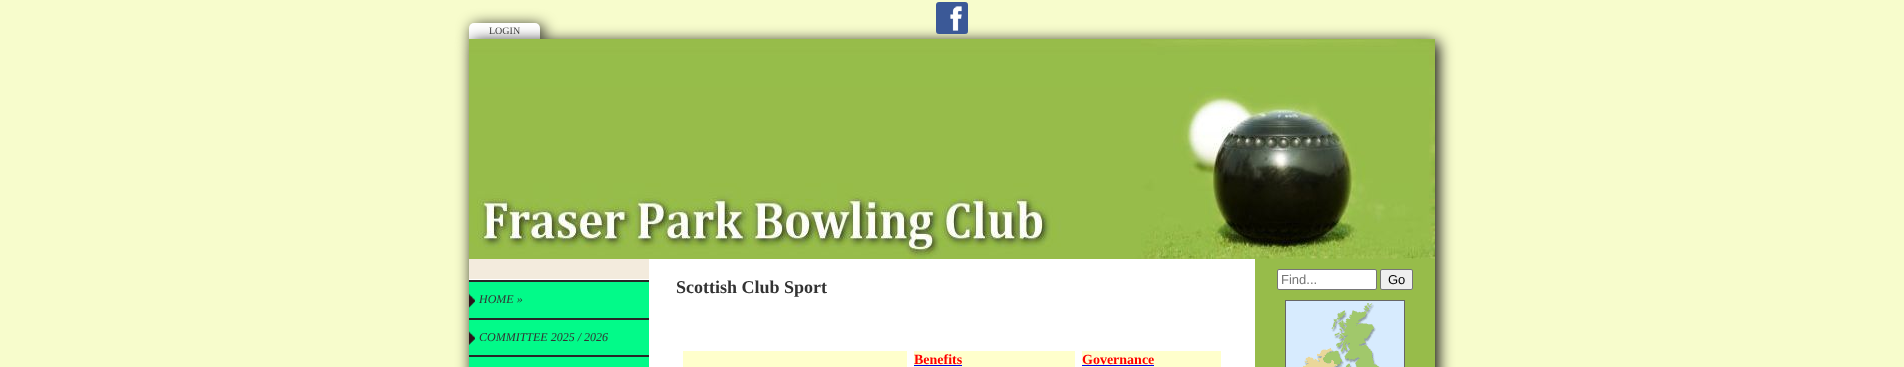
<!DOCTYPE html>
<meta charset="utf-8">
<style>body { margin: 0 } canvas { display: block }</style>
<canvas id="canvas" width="1904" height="367"></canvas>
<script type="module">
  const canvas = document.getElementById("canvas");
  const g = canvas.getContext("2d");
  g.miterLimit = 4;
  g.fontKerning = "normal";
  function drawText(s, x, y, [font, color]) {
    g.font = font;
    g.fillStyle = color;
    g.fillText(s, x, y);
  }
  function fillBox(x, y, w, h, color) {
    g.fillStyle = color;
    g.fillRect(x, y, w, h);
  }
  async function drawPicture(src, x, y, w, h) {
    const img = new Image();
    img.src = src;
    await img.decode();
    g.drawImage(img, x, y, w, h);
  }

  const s1 = ["10px Liberation Serif", "#444444"];
  const s2 = ["italic 12px Liberation Serif", "#333333"];
  const s3 = ["bold 18px Liberation Serif", "#333333"];
  const s4 = ["bold 14px Liberation Serif", "#FF0000"];
  const s5 = ["13px Liberation Sans", "#757575"];
  const s6 = ["13px Liberation Sans", "#000000"];

  fillBox(0, 0, 1904, 367, "#F7FCCC");
  g.fillStyle = "#000000";
  g.filter = "blur(7.5px)";
  g.beginPath();
  g.roundRect(472, 26, 71, 16, 5);
  g.fill();
  g.filter = "none";
  g.fillStyle = "#FFFFFF";
  g.beginPath();
  g.roundRect(469, 23, 71, 16, [5, 5, 0, 0]);
  g.fill();
  drawText("LOGIN", 489, 34, s1);
  g.fillStyle = "#000000";
  g.filter = "blur(7.5px)";
  g.beginPath();
  g.rect(472, 42, 966, 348);
  g.fill();
  g.filter = "none";
  fillBox(649, 259, 606, 108, "#FFFFFF");
  await drawPicture("pic1.png", 936, 2, 32, 32);
  await drawPicture("pic2.png", 469, 39, 966, 220);
  fillBox(469, 259, 180, 20, "#F3EBDD");
  fillBox(469, 280, 180, 77, "#272727");
  fillBox(469, 279, 180, 1, "#FFFFFF");
  fillBox(469, 282, 180, 36, "#02FA89");
  await drawPicture("pic3.png", 469, 293, 6, 15);
  drawText("HOME »", 479, 303, s2);
  fillBox(469, 320, 180, 35, "#02FA89");
  await drawPicture("pic4.png", 469, 331, 6, 14);
  drawText("COMMITTEE 2025 / 2026", 479, 341, s2);
  fillBox(469, 357, 180, 10, "#02FA89");
  drawText("Scottish Club Sport", 676, 293, s3);
  fillBox(683, 351, 224, 16, "#FFFFCC");
  fillBox(914, 351, 161, 16, "#FFFFCC");
  drawText("Benefits", 914, 364, s4);
  fillBox(914, 365, 48, 1, "#0000EE");
  fillBox(1082, 351, 139, 16, "#FFFFCC");
  drawText("Governance", 1082, 364, s4);
  fillBox(1082, 365, 72, 1, "#0000EE");
  fillBox(1255, 259, 180, 108, "#97BC4A");
  g.fillStyle = "#FFFFFF";
  g.beginPath();
  g.roundRect(1277.5, 269.5, 99, 20, 1.5);
  g.fill();
  g.strokeStyle = "#767676";
  g.stroke();
  drawText("Find...", 1281, 284, s5);
  g.fillStyle = "#EFEFEF";
  g.beginPath();
  g.roundRect(1380.5, 269.5, 32, 20, 1.5);
  g.fill();
  g.stroke();
  drawText("Go", 1388, 284, s6);
  await drawPicture("pic5.png", 1285, 300, 120, 67);
</script>
